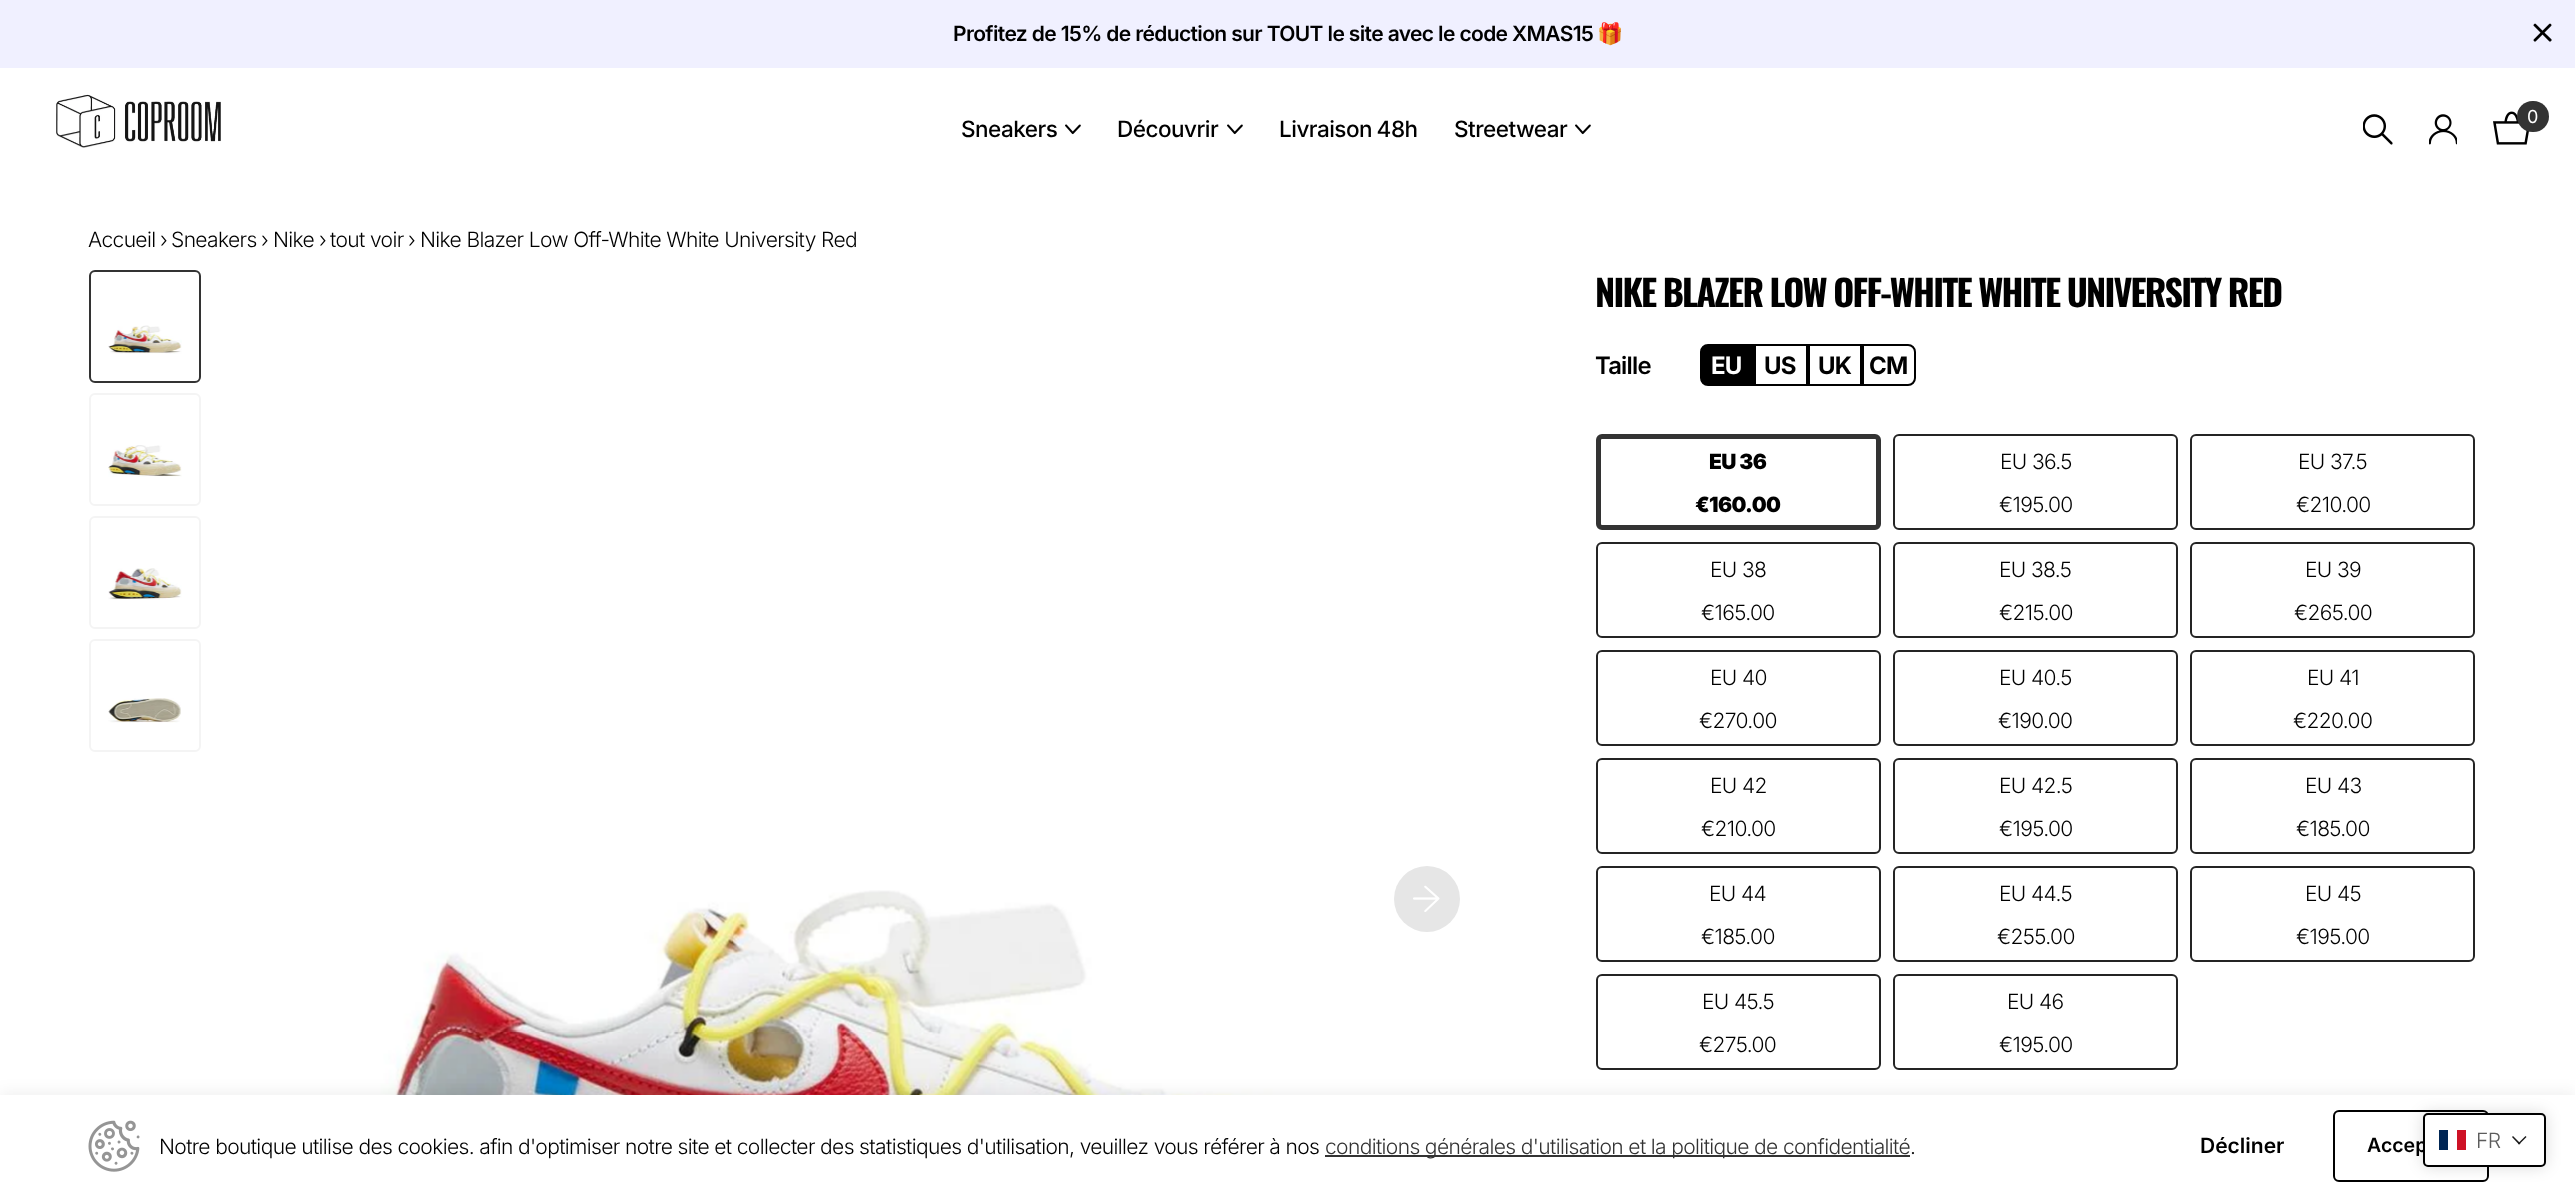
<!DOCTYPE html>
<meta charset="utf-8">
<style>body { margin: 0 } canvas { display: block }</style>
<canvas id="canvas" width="2575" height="1197"></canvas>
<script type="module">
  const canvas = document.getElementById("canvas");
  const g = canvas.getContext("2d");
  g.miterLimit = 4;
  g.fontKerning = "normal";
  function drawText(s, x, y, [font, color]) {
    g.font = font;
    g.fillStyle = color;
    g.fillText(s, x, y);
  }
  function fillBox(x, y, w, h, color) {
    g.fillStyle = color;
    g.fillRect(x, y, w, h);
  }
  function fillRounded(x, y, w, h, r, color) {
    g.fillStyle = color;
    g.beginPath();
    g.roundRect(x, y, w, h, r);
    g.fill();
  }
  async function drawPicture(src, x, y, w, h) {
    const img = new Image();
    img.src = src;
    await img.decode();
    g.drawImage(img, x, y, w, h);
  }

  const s1 = ["600 21px 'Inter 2'", "#000000"];
  const s2 = ["bold 21px Noto Color Emoji", "#000000"];
  const s3 = ["18px Inter", "#FFFFFF"];
  const s4 = ["500 22.5px Inter", "#000000"];
  const s5 = ["300 21px Inter", "#000000"];
  const s6 = ["bold 36px Oswald", "#000000"];
  const s7 = ["600 24px Inter", "#000000"];
  const s8 = ["bold 24px Inter", "#FFFFFF"];
  const s9 = ["bold 24px Inter", "#000000"];
  const s10 = ["900 21px Inter", "#000000"];
  const s11 = ["300 21px Inter", "#333333"];
  const s12 = ["600 19.5px 'Inter 2'", "#000000"];
  const s13 = ["300 21px Inter", "#5C5C5C"];

  fillBox(0, 0, 2575, 1197, "#FFFFFF");
  fillBox(0, 0, 2575, 68, "#F0F0FF");
  g.letterSpacing = "-0.63px";
  drawText("Profitez de 15% de réduction sur TOUT le site avec le code XMAS15", 953, 41, s1);
  drawText("🎁", 1597, 41, s2);
  await drawPicture("pic1.png", 2533, 23, 19, 19);
  await drawPicture("pic2.png", 56, 94, 165, 54);
  await drawPicture("pic3.png", 2363, 114, 30, 31);
  await drawPicture("pic4.png", 2429, 114, 28, 31);
  await drawPicture("pic5.png", 2493, 111, 36, 34);
  fillRounded(2517, 101, 32, 31, 15.5, "#333333");
  g.letterSpacing = "-1px";
  drawText("0", 2527, 123, s3);
  g.letterSpacing = "-0.5px";
  drawText("Sneakers", 961, 137, s4);
  await drawPicture("pic6.png", 1065, 124, 16, 11);
  drawText("Découvrir", 1117, 137, s4);
  await drawPicture("pic6.png", 1227, 124, 16, 11);
  g.wordSpacing = "-1px";
  drawText("Livraison 48h", 1279, 137, s4);
  g.wordSpacing = "0px";
  drawText("Streetwear", 1454, 137, s4);
  await drawPicture("pic6.png", 1575, 124, 16, 11);
  g.letterSpacing = "-0.63px";
  drawText("Accueil", 88, 247, s5);
  drawText("›", 160, 247, s5);
  drawText("Sneakers", 171, 247, s5);
  drawText("›", 261, 247, s5);
  drawText("Nike", 273, 247, s5);
  drawText("›", 319, 247, s5);
  drawText("tout voir", 330, 247, s5);
  drawText("›", 408, 247, s5);
  drawText("Nike Blazer Low Off-White White University Red", 420, 247, s5);
  g.beginPath();
  g.roundRect(90, 271, 110, 111, 5);
  g.strokeStyle = "#333333";
  g.lineWidth = 2;
  g.stroke();
  await drawPicture("pic7.png", 108, 325, 74, 29);
  g.beginPath();
  g.roundRect(90, 394, 110, 111, 5);
  g.strokeStyle = "#F4F4F4";
  g.stroke();
  await drawPicture("pic8.png", 108, 445, 74, 32);
  g.beginPath();
  g.roundRect(90, 517, 110, 111, 5);
  g.stroke();
  await drawPicture("pic9.png", 108, 568, 74, 32);
  g.beginPath();
  g.roundRect(90, 640, 110, 111, 5);
  g.stroke();
  await drawPicture("pic10.png", 108, 698, 73, 25);
  await drawPicture("pic12.png", 336, 890, 1067, 205);
  g.fillStyle = "#E6E6E6";
  g.beginPath();
  g.arc(1427, 899, 33, 0, Math.PI * 2);
  g.fill();
  await drawPicture("pic11.png", 1413, 885, 27, 27);
  g.letterSpacing = "-1.8px";
  drawText("NIKE BLAZER LOW OFF-WHITE WHITE UNIVERSITY RED", 1595, 307, s6);
  g.letterSpacing = "-0.75px";
  drawText("Taille", 1595, 374, s7);
  g.beginPath();
  g.roundRect(1701, 345, 52, 40, [7, 0, 0, 7]);
  g.fill();
  g.strokeStyle = "#000000";
  g.stroke();
  drawText("EU", 1711, 374, s8);
  g.strokeRect(1755, 345, 52, 40);
  drawText("US", 1764, 374, s9);
  g.strokeRect(1809, 345, 52, 40);
  drawText("UK", 1818, 374, s9);
  g.beginPath();
  g.roundRect(1863, 345, 52, 40, [0, 7, 7, 0]);
  g.stroke();
  drawText("CM", 1869, 374, s9);
  g.beginPath();
  g.roundRect(1598.5, 436.5, 280, 91, 3.5);
  g.strokeStyle = "#333333";
  g.lineWidth = 5;
  g.stroke();
  g.letterSpacing = "-0.63px";
  drawText("EU 36", 1709, 469, s10);
  drawText("€160.00", 1695, 512, s10);
  g.beginPath();
  g.roundRect(1894, 435, 283, 94, 5);
  g.strokeStyle = "#242424";
  g.lineWidth = 2;
  g.stroke();
  drawText("EU 36.5", 2000, 469, s5);
  drawText("€195.00", 1999, 512, s5);
  g.beginPath();
  g.roundRect(2191, 435, 283, 94, 5);
  g.stroke();
  drawText("EU 37.5", 2298, 469, s5);
  drawText("€210.00", 2296, 512, s5);
  g.beginPath();
  g.roundRect(1597, 543, 283, 94, 5);
  g.stroke();
  drawText("EU 38", 1710, 577, s5);
  drawText("€165.00", 1701, 620, s5);
  g.beginPath();
  g.roundRect(1894, 543, 283, 94, 5);
  g.stroke();
  drawText("EU 38.5", 1999, 577, s5);
  drawText("€215.00", 1999, 620, s5);
  g.beginPath();
  g.roundRect(2191, 543, 283, 94, 5);
  g.stroke();
  drawText("EU 39", 2305, 577, s5);
  drawText("€265.00", 2294, 620, s5);
  g.beginPath();
  g.roundRect(1597, 651, 283, 94, 5);
  g.stroke();
  drawText("EU 40", 1710, 685, s5);
  drawText("€270.00", 1699, 728, s5);
  g.beginPath();
  g.roundRect(1894, 651, 283, 94, 5);
  g.stroke();
  drawText("EU 40.5", 1999, 685, s5);
  drawText("€190.00", 1998, 728, s5);
  g.beginPath();
  g.roundRect(2191, 651, 283, 94, 5);
  g.stroke();
  drawText("EU 41", 2307, 685, s5);
  drawText("€220.00", 2293, 728, s5);
  g.beginPath();
  g.roundRect(1597, 759, 283, 94, 5);
  g.stroke();
  drawText("EU 42", 1710, 793, s5);
  drawText("€210.00", 1701, 836, s5);
  g.beginPath();
  g.roundRect(1894, 759, 283, 94, 5);
  g.stroke();
  drawText("EU 42.5", 1999, 793, s5);
  drawText("€195.00", 1999, 836, s5);
  g.beginPath();
  g.roundRect(2191, 759, 283, 94, 5);
  g.stroke();
  drawText("EU 43", 2305, 793, s5);
  drawText("€185.00", 2296, 836, s5);
  g.beginPath();
  g.roundRect(1597, 867, 283, 94, 5);
  g.stroke();
  drawText("EU 44", 1709, 901, s5);
  drawText("€185.00", 1701, 944, s5);
  g.beginPath();
  g.roundRect(1894, 867, 283, 94, 5);
  g.stroke();
  drawText("EU 44.5", 1999, 901, s5);
  drawText("€255.00", 1997, 944, s5);
  g.beginPath();
  g.roundRect(2191, 867, 283, 94, 5);
  g.stroke();
  drawText("EU 45", 2305, 901, s5);
  drawText("€195.00", 2296, 944, s5);
  g.beginPath();
  g.roundRect(1597, 975, 283, 94, 5);
  g.stroke();
  drawText("EU 45.5", 1702, 1009, s5);
  drawText("€275.00", 1699, 1052, s5);
  g.beginPath();
  g.roundRect(1894, 975, 283, 94, 5);
  g.stroke();
  drawText("EU 46", 2007, 1009, s5);
  drawText("€195.00", 1999, 1052, s5);
  g.fillStyle = "rgba(0, 0, 0, 0.06)";
  g.filter = "blur(7.5px)";
  g.beginPath();
  g.rect(0, 1092, 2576, 102);
  g.fill();
  g.filter = "none";
  fillBox(0, 1095, 2575, 102, "#FFFFFF");
  await drawPicture("pic13.png", 88, 1120, 52, 52);
  drawText("Notre boutique utilise des cookies. afin d'optimiser notre site et collecter des statistiques d'utilisation, veuillez vous référer à nos", 159, 1154, s5);
  fillBox(1325, 1155, 585, 2, "#333333");
  drawText("conditions générales d'utilisation et la politique de confidentialité", 1325, 1154, s11);
  drawText(".", 1910, 1154, s5);
  g.letterSpacing = "0px";
  drawText("Décliner", 2200, 1153, s1);
  g.beginPath();
  g.roundRect(2334, 1111, 154, 70, 5);
  g.strokeStyle = "#000000";
  g.stroke();
  drawText("Accep", 2367, 1152, s12);
  g.fillStyle = "rgba(0, 0, 0, 0.15)";
  g.filter = "blur(7.5px)";
  g.beginPath();
  g.roundRect(2423, 1113, 123, 54, 5);
  g.fill();
  g.filter = "none";
  g.fillStyle = "#FFFFFF";
  g.beginPath();
  g.roundRect(2424, 1114, 121, 52, 4);
  g.fill();
  g.stroke();
  fillBox(2439, 1130, 9, 20, "#002654");
  fillBox(2457, 1130, 9, 20, "#CE1126");
  g.letterSpacing = "-0.63px";
  drawText("FR", 2476, 1148, s13);
  g.fillStyle = "#1A1A1A";
  g.beginPath();
  g.moveTo(2525.5, 1136);
  g.lineTo(2526.5, 1137);
  g.lineTo(2519, 1144.5);
  g.lineTo(2518, 1143.5);
  g.closePath();
  g.fill();
  g.beginPath();
  g.moveTo(2513, 1136);
  g.lineTo(2520.5, 1143.5);
  g.lineTo(2519, 1144.5);
  g.lineTo(2512, 1137);
  g.closePath();
  g.fill();
</script>
